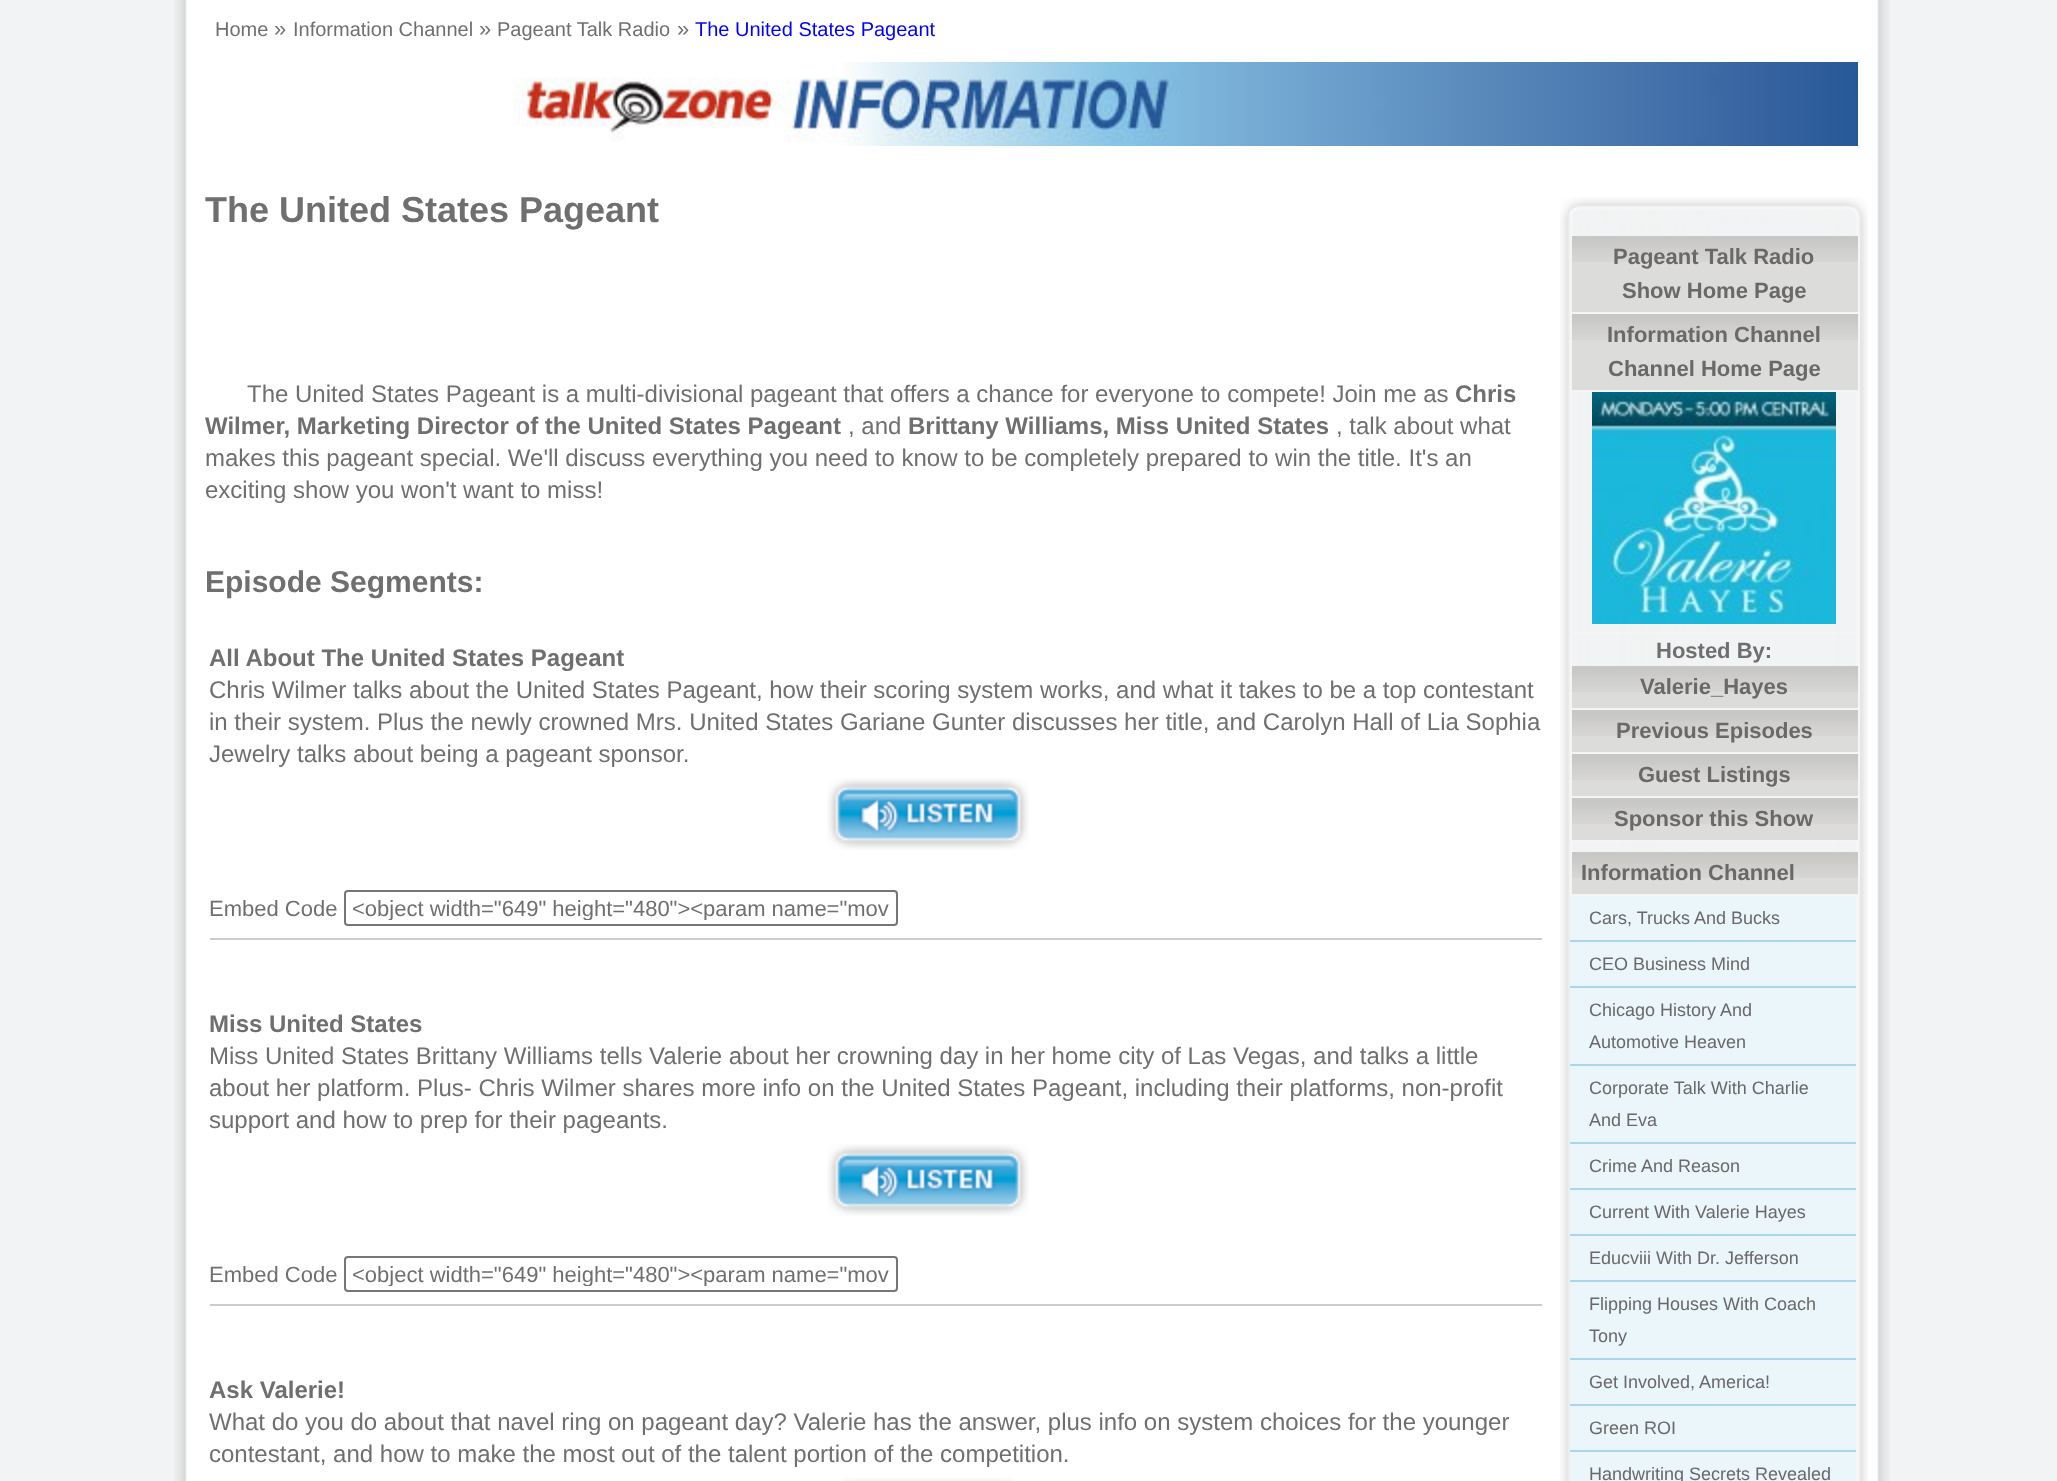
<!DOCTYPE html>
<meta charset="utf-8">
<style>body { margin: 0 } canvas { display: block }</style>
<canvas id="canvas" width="2057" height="1481"></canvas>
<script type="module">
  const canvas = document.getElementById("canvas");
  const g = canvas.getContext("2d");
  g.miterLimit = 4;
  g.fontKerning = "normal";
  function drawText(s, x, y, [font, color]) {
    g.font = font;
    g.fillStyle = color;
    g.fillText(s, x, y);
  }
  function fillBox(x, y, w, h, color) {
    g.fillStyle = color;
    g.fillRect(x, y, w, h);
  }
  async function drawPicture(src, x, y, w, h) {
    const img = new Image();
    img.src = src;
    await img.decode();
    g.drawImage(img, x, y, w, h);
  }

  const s1 = ["20px Liberation Sans", "#706F6F"];
  const s2 = ["22px Liberation Sans", "#706F6F"];
  const s3 = ["20px Liberation Sans", "#0000FF"];
  const s4 = ["bold 36px Liberation Sans", "#706F6F"];
  const s5 = ["24px Liberation Sans", "#706F6F"];
  const s6 = ["bold 24px Liberation Sans", "#706F6F"];
  const s7 = ["bold 30px Liberation Sans", "#706F6F"];
  const s8 = ["bold 22px Liberation Sans", "#6A6868"];
  const s9 = ["bold 22px Liberation Sans", "#706F6F"];
  const s10 = ["18px Liberation Sans", "#6A6868"];

  fillBox(0, 0, 2057, 1481, "#F1F3F4");
  await drawPicture("pic1.png", 174, 0, 1716, 1481);
  drawText("Home", 215, 36, s1);
  drawText("»", 274, 36, s2);
  drawText("Information Channel", 293, 36, s1);
  drawText("»", 479, 36, s2);
  drawText("Pageant Talk Radio", 497, 36, s1);
  drawText("»", 677, 36, s2);
  drawText("The United States Pageant", 695, 36, s3);
  await drawPicture("pic2.png", 513, 62, 1345, 84);
  drawText("The United States Pageant", 205, 222, s4);
  drawText("The United States Pageant is a multi-divisional pageant that offers a chance for everyone to compete! Join me as", 247, 402, s5);
  drawText("Chris", 1455, 402, s6);
  drawText("Wilmer, Marketing Director of the United States Pageant", 205, 434, s6);
  drawText(", and", 848, 434, s5);
  drawText("Brittany Williams, Miss United States", 908, 434, s6);
  drawText(", talk about what", 1336, 434, s5);
  drawText("makes this pageant special. We'll discuss everything you need to know to be completely prepared to win the title. It's an", 205, 466, s5);
  drawText("exciting show you won't want to miss!", 205, 498, s5);
  drawText("Episode Segments:", 205, 592, s7);
  drawText("All About The United States Pageant", 209, 666, s6);
  drawText("Chris Wilmer talks about the United States Pageant, how their scoring system works, and what it takes to be a top contestant", 209, 698, s5);
  drawText("in their system. Plus the newly crowned Mrs. United States Gariane Gunter discusses her title, and Carolyn Hall of Lia Sophia", 209, 730, s5);
  drawText("Jewelry talks about being a pageant sponsor.", 209, 762, s5);
  await drawPicture("pic3.png", 827, 778, 202, 72);
  drawText("Embed Code", 209, 916, s2);
  g.beginPath();
  g.roundRect(345, 891, 552, 34, 3);
  g.strokeStyle = "#767676";
  g.lineWidth = 2;
  g.stroke();
  g.save();
  g.beginPath();
  g.rect(352, 896, 538, 24);
  g.clip();
  drawText("<object width=\"649\" height=\"480\"><param name=\"mov", 352, 916, s2);
  g.restore();
  fillBox(210, 938, 1332, 2, "#CCCCCC");
  drawText("Miss United States", 209, 1032, s6);
  drawText("Miss United States Brittany Williams tells Valerie about her crowning day in her home city of Las Vegas, and talks a little", 209, 1064, s5);
  drawText("about her platform. Plus- Chris Wilmer shares more info on the United States Pageant, including their platforms, non-profit", 209, 1096, s5);
  drawText("support and how to prep for their pageants.", 209, 1128, s5);
  await drawPicture("pic3.png", 827, 1144, 202, 72);
  drawText("Embed Code", 209, 1282, s2);
  g.beginPath();
  g.roundRect(345, 1257, 552, 34, 3);
  g.stroke();
  g.save();
  g.beginPath();
  g.rect(352, 1262, 538, 24);
  g.clip();
  drawText("<object width=\"649\" height=\"480\"><param name=\"mov", 352, 1282, s2);
  g.restore();
  fillBox(210, 1304, 1332, 2, "#CCCCCC");
  drawText("Ask Valerie!", 209, 1398, s6);
  drawText("What do you do about that navel ring on pageant day? Valerie has the answer, plus info on system choices for the younger", 209, 1430, s5);
  drawText("contestant, and how to make the most out of the talent portion of the competition.", 209, 1462, s5);
  await drawPicture("pic4.png", 841, 1478, 174, 3);
  await drawPicture("pic5.png", 1560, 197, 308, 29);
  await drawPicture("pic6.png", 1560, 226, 308, 616);
  fillBox(1859, 236, 1, 606, "#F6F5F5");
  fillBox(1570, 312, 290, 2, "#F6F5F5");
  fillBox(1571, 236, 1, 78, "#F6F5F5");
  fillBox(1572, 262, 286, 50, "#DCDCDB");
  await drawPicture("pic7.png", 1572, 236, 286, 26);
  drawText("Pageant Talk Radio", 1613, 264, s8);
  drawText("Show Home Page", 1622, 298, s8);
  fillBox(1570, 390, 290, 2, "#F6F5F5");
  fillBox(1571, 314, 1, 78, "#F6F5F5");
  fillBox(1572, 340, 286, 50, "#DCDCDB");
  await drawPicture("pic7.png", 1572, 314, 286, 26);
  drawText("Information Channel", 1607, 342, s8);
  drawText("Channel Home Page", 1608, 376, s8);
  fillBox(1570, 632, 290, 2, "#F6F5F5");
  fillBox(1571, 392, 1, 242, "#F6F5F5");
  await drawPicture("pic8.png", 1592, 392, 244, 232);
  fillBox(1570, 708, 290, 2, "#F6F5F5");
  fillBox(1571, 634, 1, 76, "#F6F5F5");
  drawText("Hosted By:", 1656, 658, s9);
  fillBox(1572, 692, 286, 16, "#DCDCDB");
  await drawPicture("pic7.png", 1572, 666, 286, 26);
  drawText("Valerie_Hayes", 1640, 694, s8);
  fillBox(1570, 752, 290, 2, "#F6F5F5");
  fillBox(1571, 710, 1, 44, "#F6F5F5");
  fillBox(1572, 736, 286, 16, "#DCDCDB");
  await drawPicture("pic7.png", 1572, 710, 286, 26);
  drawText("Previous Episodes", 1616, 738, s8);
  fillBox(1570, 796, 290, 2, "#F6F5F5");
  fillBox(1571, 754, 1, 44, "#F6F5F5");
  fillBox(1572, 780, 286, 16, "#DCDCDB");
  await drawPicture("pic7.png", 1572, 754, 286, 26);
  drawText("Guest Listings", 1638, 782, s8);
  fillBox(1570, 840, 290, 2, "#F6F5F5");
  fillBox(1571, 798, 1, 44, "#F6F5F5");
  fillBox(1572, 824, 286, 16, "#DCDCDB");
  await drawPicture("pic7.png", 1572, 798, 286, 26);
  drawText("Sponsor this Show", 1614, 826, s8);
  await drawPicture("pic9.png", 1560, 842, 308, 639);
  fillBox(1859, 852, 1, 44, "#F6F5F5");
  fillBox(1570, 894, 290, 2, "#F6F5F5");
  fillBox(1571, 852, 1, 44, "#F6F5F5");
  fillBox(1572, 878, 286, 16, "#DCDCDB");
  await drawPicture("pic7.png", 1572, 852, 286, 26);
  drawText("Information Channel", 1581, 880, s8);
  fillBox(1570, 896, 286, 44, "#EAF6FA");
  fillBox(1570, 940, 286, 2, "#AAD5EC");
  drawText("Cars, Trucks And Bucks", 1589, 924, s10);
  fillBox(1570, 942, 286, 44, "#EAF6FA");
  fillBox(1570, 986, 286, 2, "#AAD5EC");
  drawText("CEO Business Mind", 1589, 970, s10);
  fillBox(1570, 988, 286, 76, "#EAF6FA");
  fillBox(1570, 1064, 286, 2, "#AAD5EC");
  drawText("Chicago History And", 1589, 1016, s10);
  drawText("Automotive Heaven", 1589, 1048, s10);
  fillBox(1570, 1066, 286, 76, "#EAF6FA");
  fillBox(1570, 1142, 286, 2, "#AAD5EC");
  drawText("Corporate Talk With Charlie", 1589, 1094, s10);
  drawText("And Eva", 1589, 1126, s10);
  fillBox(1570, 1144, 286, 44, "#EAF6FA");
  fillBox(1570, 1188, 286, 2, "#AAD5EC");
  drawText("Crime And Reason", 1589, 1172, s10);
  fillBox(1570, 1190, 286, 44, "#EAF6FA");
  fillBox(1570, 1234, 286, 2, "#AAD5EC");
  drawText("Current With Valerie Hayes", 1589, 1218, s10);
  fillBox(1570, 1236, 286, 44, "#EAF6FA");
  fillBox(1570, 1280, 286, 2, "#AAD5EC");
  drawText("Educviii With Dr. Jefferson", 1589, 1264, s10);
  fillBox(1570, 1282, 286, 76, "#EAF6FA");
  fillBox(1570, 1358, 286, 2, "#AAD5EC");
  drawText("Flipping Houses With Coach", 1589, 1310, s10);
  drawText("Tony", 1589, 1342, s10);
  fillBox(1570, 1360, 286, 44, "#EAF6FA");
  fillBox(1570, 1404, 286, 2, "#AAD5EC");
  drawText("Get Involved, America!", 1589, 1388, s10);
  fillBox(1570, 1406, 286, 44, "#EAF6FA");
  fillBox(1570, 1450, 286, 2, "#AAD5EC");
  drawText("Green ROI", 1589, 1434, s10);
  fillBox(1570, 1452, 286, 29, "#EAF6FA");
  drawText("Handwriting Secrets Revealed", 1589, 1480, s10);
</script>
